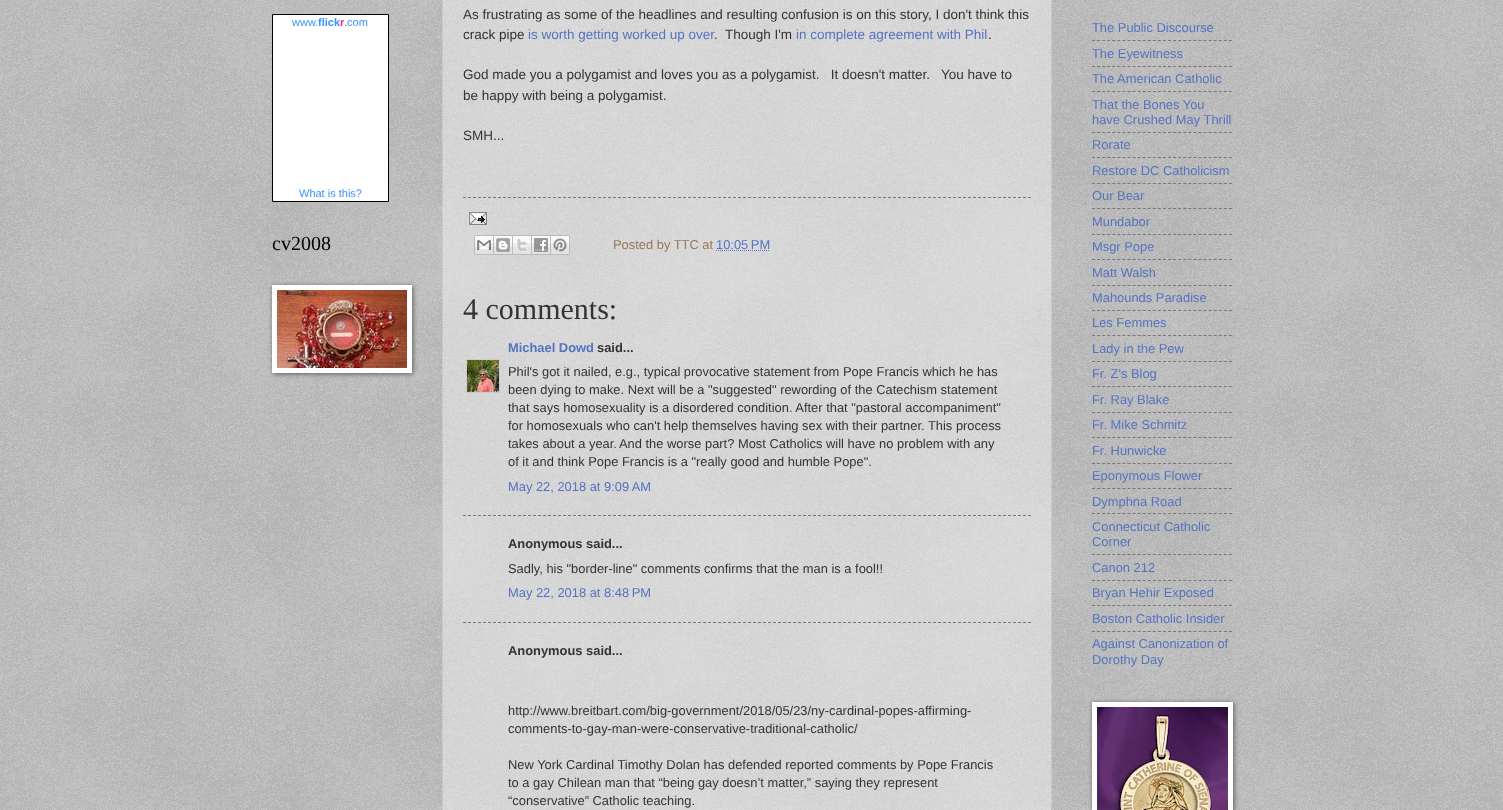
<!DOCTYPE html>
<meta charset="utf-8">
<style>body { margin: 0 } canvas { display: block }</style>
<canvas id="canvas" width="1503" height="810"></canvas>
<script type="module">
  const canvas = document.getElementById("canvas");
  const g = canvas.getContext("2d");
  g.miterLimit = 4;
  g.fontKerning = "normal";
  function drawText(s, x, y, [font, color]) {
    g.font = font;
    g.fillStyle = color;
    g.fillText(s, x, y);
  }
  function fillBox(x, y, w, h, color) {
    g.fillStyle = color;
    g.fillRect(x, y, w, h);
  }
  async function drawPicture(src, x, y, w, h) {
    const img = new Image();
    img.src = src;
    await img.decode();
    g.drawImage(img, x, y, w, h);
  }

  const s1 = ["11px Liberation Sans", "#3993FF"];
  const s2 = ["bold 11px Liberation Sans", "#3993FF"];
  const s3 = ["bold 11px Liberation Sans", "#FF1C92"];
  const s4 = ["20px Liberation Serif", "#000000"];
  const s5 = ["13.5px Liberation Sans", "#333333"];
  const s6 = ["13.5px Liberation Sans", "#5473C0"];
  const s7 = ["12.9px Liberation Sans", "#997755"];
  const s8 = ["12.9px Liberation Sans", "#5473C0"];
  const s9 = ["30px Liberation Serif", "#333333"];
  const s10 = ["bold 12.9px Liberation Sans", "#5473C0"];
  const s11 = ["bold 12.9px Liberation Sans", "#333333"];
  const s12 = ["12.9px Liberation Sans", "#333333"];

  fillBox(0, 0, 1503, 810, "#7F7F7F");
  await drawPicture("pic1.png", 0, 0, 1503, 810);
  g.fillStyle = "#FFFFFF";
  g.beginPath();
  g.rect(272.5, 14.5, 116, 187);
  g.fill();
  g.strokeStyle = "#000000";
  g.stroke();
  drawText("www.", 292, 26, s1);
  drawText("flick", 318, 26, s2);
  drawText("r", 340, 26, s3);
  drawText(".com", 344, 26, s1);
  drawText("What is this?", 299, 197, s1);
  drawText("cv2008", 272, 250, s4);
  g.fillStyle = "rgba(0, 0, 0, 0.5)";
  g.filter = "blur(2.5px)";
  g.beginPath();
  g.rect(273, 286, 140, 88);
  g.fill();
  g.filter = "none";
  fillBox(272, 285, 140, 88, "#FFFFFF");
  await drawPicture("pic2.png", 277, 290, 130, 78);
  fillBox(442, 0, 610, 810, "rgba(255, 255, 255, 0.4)");
  g.beginPath();
  g.moveTo(1051.5, -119);
  g.lineTo(1051.5, 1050);
  g.strokeStyle = "#CCBB99";
  g.setLineDash([1, 1]);
  g.stroke();
  g.beginPath();
  g.moveTo(442.5, -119);
  g.lineTo(442.5, 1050);
  g.stroke();
  drawText("As frustrating as some of the headlines and resulting confusion is on this story, I don't think this", 463, 19, s5);
  drawText("crack pipe", 463, 39, s5);
  drawText("is worth getting worked up over", 528, 39, s6);
  drawText(".  Though I'm", 714, 39, s5);
  drawText("in complete agreement with Phil", 796, 39, s6);
  drawText(".", 988, 39, s5);
  drawText("God made you a polygamist and loves you as a polygamist.   It doesn't matter.   You have to", 463, 79, s5);
  drawText("be happy with being a polygamist.", 463, 100, s5);
  drawText("SMH...", 463, 140, s5);
  g.beginPath();
  g.moveTo(463, 197.5);
  g.lineTo(1031, 197.5);
  g.strokeStyle = "#777777";
  g.setLineDash([3, 2]);
  g.stroke();
  await drawPicture("pic3.png", 469, 212, 18, 13);
  await drawPicture("pic4.png", 474, 235, 20, 20);
  await drawPicture("pic5.png", 494, 235, 19, 20);
  await drawPicture("pic6.png", 513, 235, 19, 20);
  await drawPicture("pic7.png", 532, 235, 19, 20);
  await drawPicture("pic8.png", 551, 235, 19, 20);
  drawText("Posted by TTC at", 613, 249, s7);
  drawText("10:05 PM", 716, 249, s8);
  g.beginPath();
  g.moveTo(716, 250.5);
  g.lineTo(770, 250.5);
  g.strokeStyle = "#5473C0";
  g.setLineDash([1, 1]);
  g.stroke();
  drawText("4 comments:", 463, 319, s9);
  drawText("Michael Dowd", 508, 352, s10);
  drawText("said...", 597, 352, s11);
  g.strokeStyle = "#CCCCCC";
  g.setLineDash([]);
  g.strokeRect(466.5, 359.5, 33, 33);
  await drawPicture("pic9.png", 467, 360, 32, 32);
  drawText("Phil's got it nailed, e.g., typical provocative statement from Pope Francis which he has", 508, 376, s12);
  drawText("been dying to make. Next will be a \"suggested\" rewording of the Catechism statement", 508, 394, s12);
  drawText("that says homosexuality is a disordered condition. After that \"pastoral accompaniment\"", 508, 412, s12);
  drawText("for homosexuals who can't help themselves having sex with their partner. This process", 508, 430, s12);
  drawText("takes about a year.", 508, 448, s12);
  drawText("And the worse part? Most Catholics will have no problem with any", 619, 448, s12);
  drawText("of it and think Pope Francis is a \"really good and humble Pope\".", 508, 466, s12);
  drawText("May 22, 2018 at 9:09 AM", 508, 491, s8);
  g.beginPath();
  g.moveTo(463, 515.5);
  g.lineTo(1031, 515.5);
  g.strokeStyle = "#777777";
  g.setLineDash([3, 2]);
  g.stroke();
  drawText("Anonymous said...", 508, 548, s11);
  drawText("Sadly, his \"border-line\" comments confirms that the man is a fool!!", 508, 573, s12);
  drawText("May 22, 2018 at 8:48 PM", 508, 597, s8);
  g.beginPath();
  g.moveTo(463, 622.5);
  g.lineTo(1031, 622.5);
  g.stroke();
  drawText("Anonymous said...", 508, 655, s11);
  drawText("http://www.breitbart.com/big-government/2018/05/23/ny-cardinal-popes-affirming-", 508, 715, s12);
  drawText("comments-to-gay-man-were-conservative-traditional-catholic/", 508, 733, s12);
  drawText("New York Cardinal Timothy Dolan has defended reported comments by Pope Francis", 508, 769, s12);
  drawText("to a gay Chilean man that “being gay doesn’t matter,” saying they represent", 508, 787, s12);
  drawText("“conservative” Catholic teaching.", 508, 805, s12);
  drawText("The Public Discourse", 1092, 32, s8);
  g.beginPath();
  g.moveTo(1092, 40.5);
  g.lineTo(1232, 40.5);
  g.setLineDash([3, 2.07]);
  g.stroke();
  drawText("The Eyewitness", 1092, 58, s8);
  g.beginPath();
  g.moveTo(1092, 66.5);
  g.lineTo(1232, 66.5);
  g.stroke();
  drawText("The American Catholic", 1092, 83, s8);
  g.beginPath();
  g.moveTo(1092, 91.5);
  g.lineTo(1232, 91.5);
  g.stroke();
  drawText("That the Bones You", 1092, 109, s8);
  drawText("have Crushed May Thrill", 1092, 124, s8);
  g.beginPath();
  g.moveTo(1092, 132.5);
  g.lineTo(1232, 132.5);
  g.stroke();
  drawText("Rorate", 1092, 149, s8);
  g.beginPath();
  g.moveTo(1092, 157.5);
  g.lineTo(1232, 157.5);
  g.stroke();
  drawText("Restore DC Catholicism", 1092, 175, s8);
  g.beginPath();
  g.moveTo(1092, 183.5);
  g.lineTo(1232, 183.5);
  g.stroke();
  drawText("Our Bear", 1092, 200, s8);
  g.beginPath();
  g.moveTo(1092, 208.5);
  g.lineTo(1232, 208.5);
  g.stroke();
  drawText("Mundabor", 1092, 226, s8);
  g.beginPath();
  g.moveTo(1092, 234.5);
  g.lineTo(1232, 234.5);
  g.stroke();
  drawText("Msgr Pope", 1092, 251, s8);
  g.beginPath();
  g.moveTo(1092, 259.5);
  g.lineTo(1232, 259.5);
  g.stroke();
  drawText("Matt Walsh", 1092, 277, s8);
  g.beginPath();
  g.moveTo(1092, 285.5);
  g.lineTo(1232, 285.5);
  g.stroke();
  drawText("Mahounds Paradise", 1092, 302, s8);
  g.beginPath();
  g.moveTo(1092, 310.5);
  g.lineTo(1232, 310.5);
  g.stroke();
  drawText("Les Femmes", 1092, 327, s8);
  g.beginPath();
  g.moveTo(1092, 335.5);
  g.lineTo(1232, 335.5);
  g.stroke();
  drawText("Lady in the Pew", 1092, 353, s8);
  g.beginPath();
  g.moveTo(1092, 361.5);
  g.lineTo(1232, 361.5);
  g.stroke();
  drawText("Fr. Z's Blog", 1092, 378, s8);
  g.beginPath();
  g.moveTo(1092, 386.5);
  g.lineTo(1232, 386.5);
  g.stroke();
  drawText("Fr. Ray Blake", 1092, 404, s8);
  g.beginPath();
  g.moveTo(1092, 412.5);
  g.lineTo(1232, 412.5);
  g.stroke();
  drawText("Fr. Mike Schmitz", 1092, 429, s8);
  g.beginPath();
  g.moveTo(1092, 437.5);
  g.lineTo(1232, 437.5);
  g.stroke();
  drawText("Fr. Hunwicke", 1092, 455, s8);
  g.beginPath();
  g.moveTo(1092, 463.5);
  g.lineTo(1232, 463.5);
  g.stroke();
  drawText("Eponymous Flower", 1092, 480, s8);
  g.beginPath();
  g.moveTo(1092, 488.5);
  g.lineTo(1232, 488.5);
  g.stroke();
  drawText("Dymphna Road", 1092, 506, s8);
  g.beginPath();
  g.moveTo(1092, 513.5);
  g.lineTo(1232, 513.5);
  g.stroke();
  drawText("Connecticut Catholic", 1092, 531, s8);
  drawText("Corner", 1092, 546, s8);
  g.beginPath();
  g.moveTo(1092, 554.5);
  g.lineTo(1232, 554.5);
  g.stroke();
  drawText("Canon 212", 1092, 572, s8);
  g.beginPath();
  g.moveTo(1092, 580.5);
  g.lineTo(1232, 580.5);
  g.stroke();
  drawText("Bryan Hehir Exposed", 1092, 597, s8);
  g.beginPath();
  g.moveTo(1092, 605.5);
  g.lineTo(1232, 605.5);
  g.stroke();
  drawText("Boston Catholic Insider", 1092, 623, s8);
  g.beginPath();
  g.moveTo(1092, 631.5);
  g.lineTo(1232, 631.5);
  g.stroke();
  drawText("Against Canonization of", 1092, 648, s8);
  drawText("Dorothy Day", 1092, 664, s8);
  g.fillStyle = "rgba(0, 0, 0, 0.5)";
  g.filter = "blur(2.5px)";
  g.beginPath();
  g.rect(1093, 703, 141, 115);
  g.fill();
  g.filter = "none";
  fillBox(1092, 702, 141, 108, "#FFFFFF");
  await drawPicture("pic10.png", 1097, 707, 131, 103);
</script>
